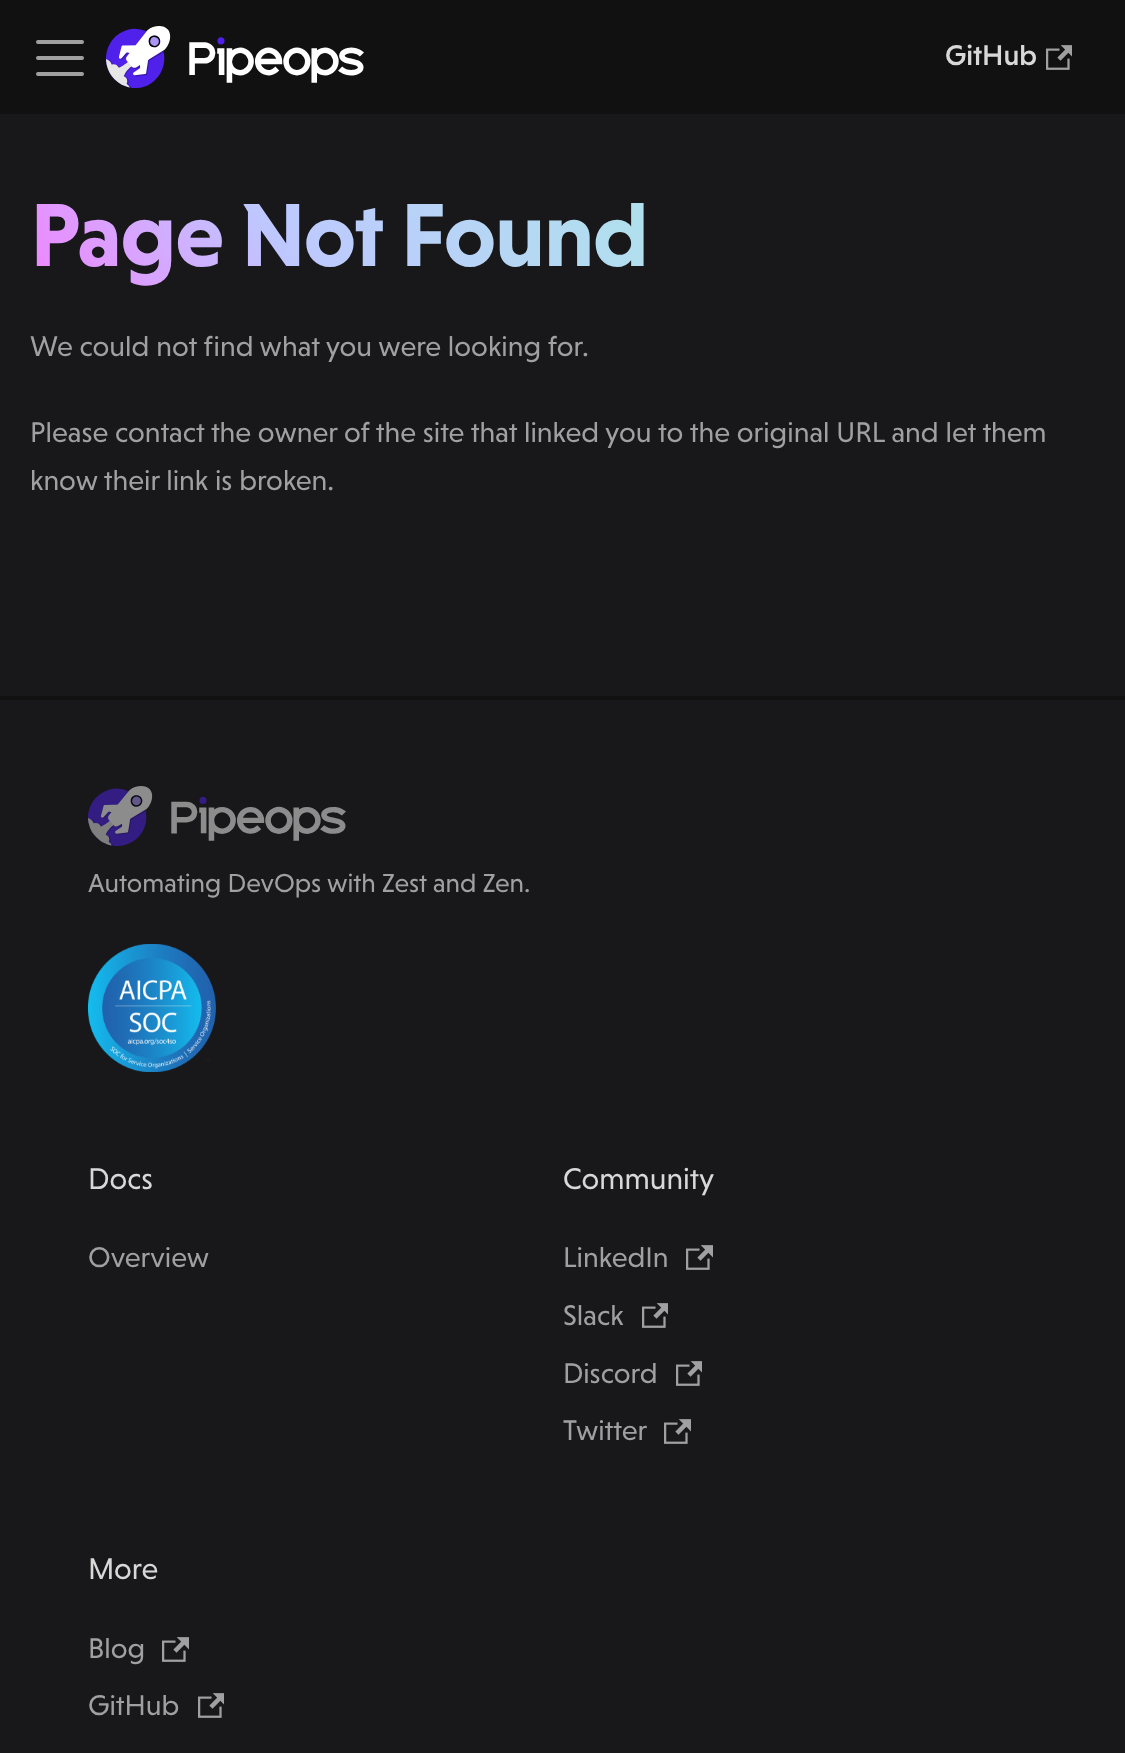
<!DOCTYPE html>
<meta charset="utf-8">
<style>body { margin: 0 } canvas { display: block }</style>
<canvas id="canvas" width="1125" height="1753"></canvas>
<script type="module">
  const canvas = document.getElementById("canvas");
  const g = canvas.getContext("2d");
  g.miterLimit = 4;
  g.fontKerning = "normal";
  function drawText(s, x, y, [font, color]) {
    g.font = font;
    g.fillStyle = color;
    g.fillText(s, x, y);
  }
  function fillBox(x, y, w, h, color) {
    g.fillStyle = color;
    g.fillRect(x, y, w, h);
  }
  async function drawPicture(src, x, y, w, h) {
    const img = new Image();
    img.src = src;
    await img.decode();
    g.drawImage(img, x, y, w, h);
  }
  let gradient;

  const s1 = ["500 28.9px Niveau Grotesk", "#D8D8D8"];
  const s2 = ["28.9px Niveau Grotesk", "#A0A0A0"];
  const s3 = ["26.6px Niveau Grotesk", "#A0A0A0"];
  const s4 = ["30.5px Niveau Grotesk", "#D8D8D8"];

  fillBox(0, 0, 1125, 1753, "#18181A");
  fillBox(0, 0, 1125, 114, "#111111");
  g.beginPath();
  g.moveTo(38, 42);
  g.lineTo(82, 42);
  g.moveTo(38, 58);
  g.lineTo(82, 58);
  g.moveTo(38, 74);
  g.lineTo(82, 74);
  g.strokeStyle = "#A0A0A0";
  g.lineWidth = 4;
  g.lineCap = "round";
  g.stroke();
  await drawPicture("pic1.png", 106, 26, 258, 62);
  drawText("GitHub", 945, 65, s1);
  await drawPicture("pic2.png", 1046, 45, 26, 25);
  g.letterSpacing = "-1.4px";
  g.font = "bold 91.25px Niveau Grotesk";
  gradient = g.createLinearGradient(179, 506, 947, -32);
  gradient.addColorStop(0, "#F083FF");
  gradient.addColorStop(0.25, "#BEC8FF");
  gradient.addColorStop(1, "#9FFFD6");
  g.fillStyle = gradient;
  g.fillText("Page Not Found", 30, 266);
  g.letterSpacing = "0px";
  drawText("We could not find what you were looking for.", 30, 356, s2);
  drawText("Please contact the owner of the site that linked you to the original URL and let them", 30, 442, s2);
  drawText("know their link is broken.", 30, 490, s2);
  fillBox(0, 696, 1125, 4, "#111111");
  await drawPicture("pic3.png", 88, 786, 258, 60);
  drawText("Automating DevOps with Zest and Zen.", 88, 892, s3);
  await drawPicture("pic4.png", 88, 944, 128, 128);
  drawText("Docs", 88, 1189, s4);
  drawText("Overview", 88, 1267, s2);
  drawText("Community", 563, 1189, s4);
  drawText("LinkedIn", 563, 1267, s2);
  await drawPicture("pic5.png", 686, 1245, 27, 25);
  drawText("Slack", 563, 1325, s2);
  await drawPicture("pic6.png", 642, 1303, 26, 25);
  drawText("Discord", 563, 1383, s2);
  await drawPicture("pic6.png", 676, 1361, 26, 25);
  drawText("Twitter", 563, 1440, s2);
  await drawPicture("pic5.png", 664, 1419, 27, 25);
  drawText("More", 88, 1579, s4);
  drawText("Blog", 88, 1658, s2);
  await drawPicture("pic5.png", 162, 1637, 27, 25);
  drawText("GitHub", 88, 1715, s2);
  await drawPicture("pic6.png", 198, 1693, 26, 25);
</script>
